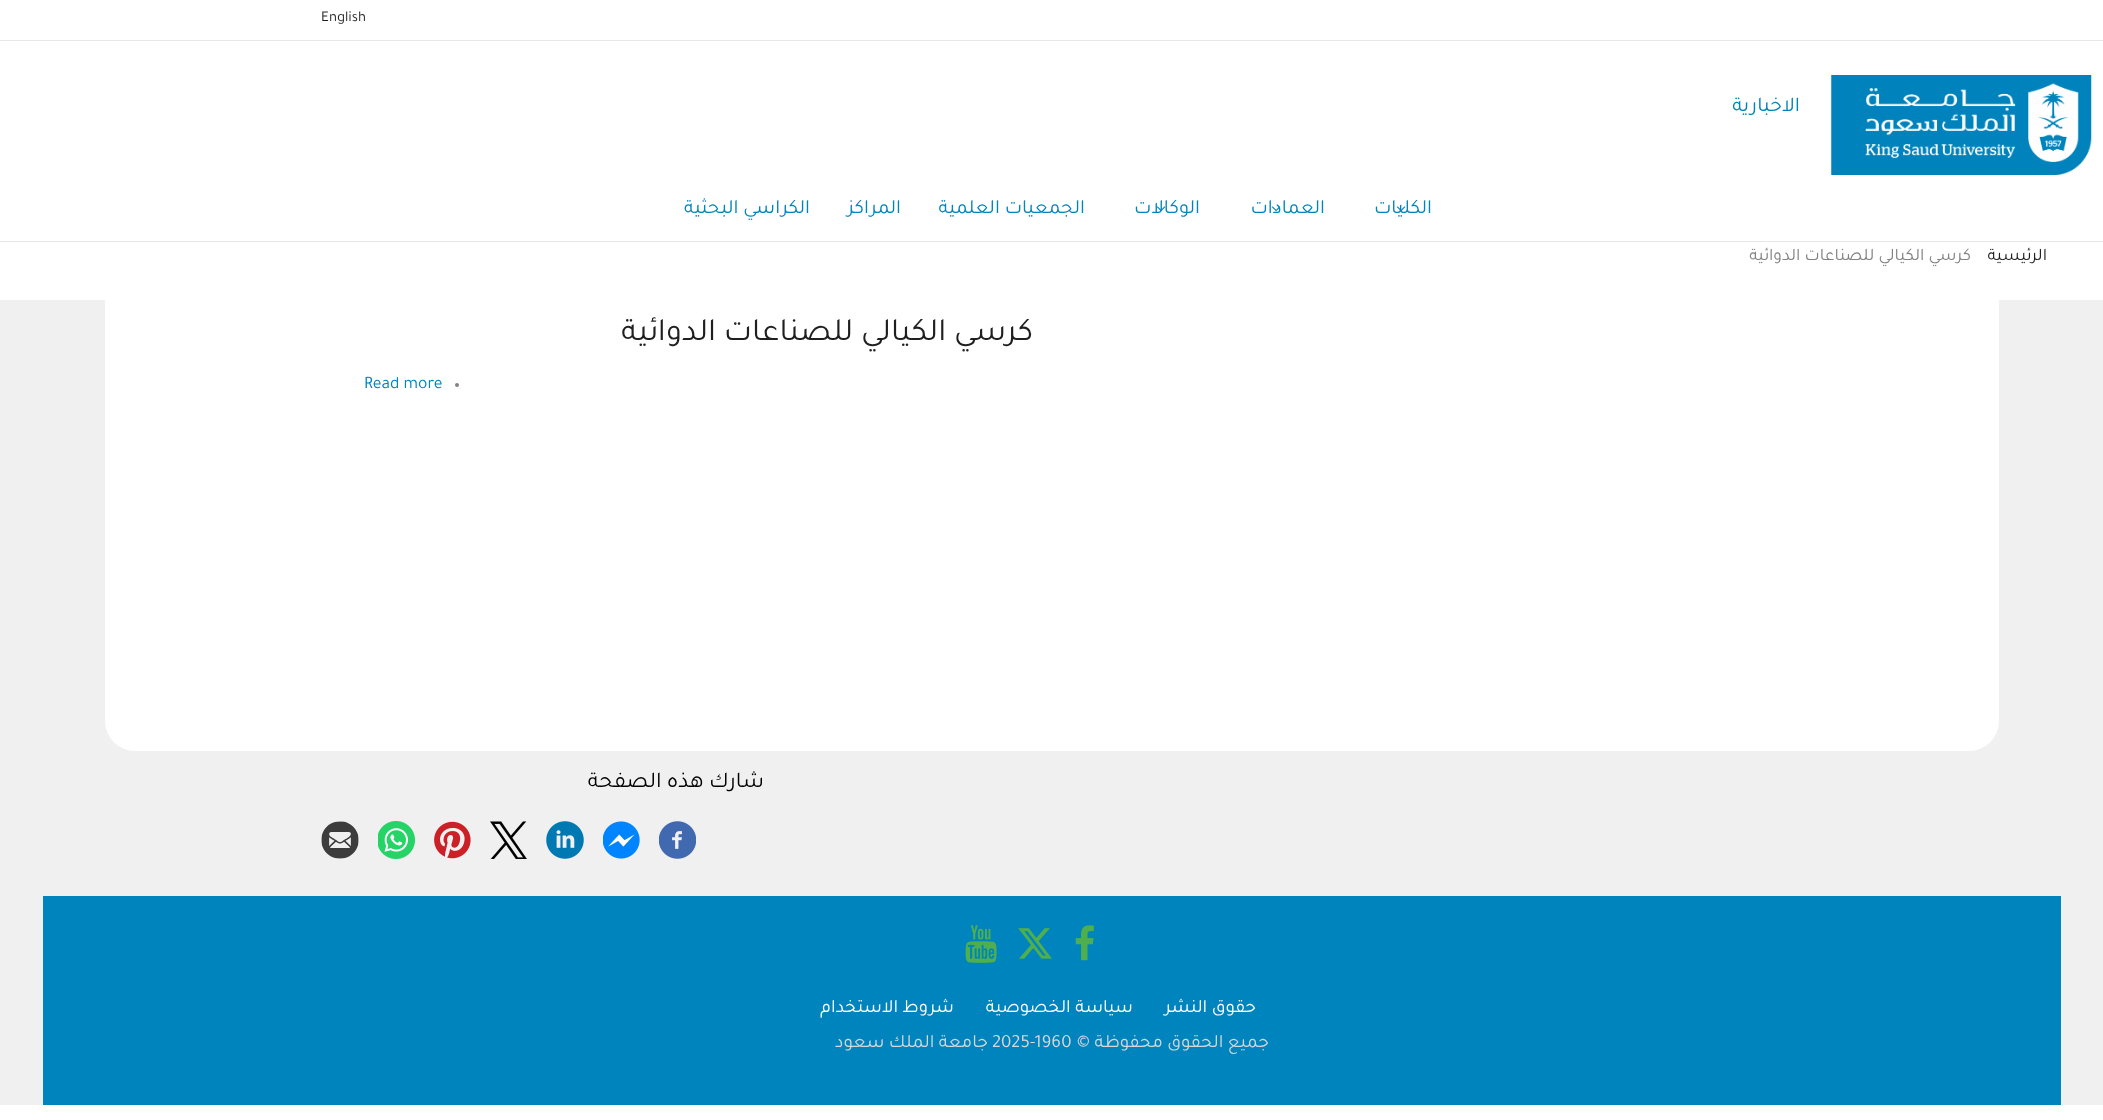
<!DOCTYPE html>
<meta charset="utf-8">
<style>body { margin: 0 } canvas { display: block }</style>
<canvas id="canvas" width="2103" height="1120"></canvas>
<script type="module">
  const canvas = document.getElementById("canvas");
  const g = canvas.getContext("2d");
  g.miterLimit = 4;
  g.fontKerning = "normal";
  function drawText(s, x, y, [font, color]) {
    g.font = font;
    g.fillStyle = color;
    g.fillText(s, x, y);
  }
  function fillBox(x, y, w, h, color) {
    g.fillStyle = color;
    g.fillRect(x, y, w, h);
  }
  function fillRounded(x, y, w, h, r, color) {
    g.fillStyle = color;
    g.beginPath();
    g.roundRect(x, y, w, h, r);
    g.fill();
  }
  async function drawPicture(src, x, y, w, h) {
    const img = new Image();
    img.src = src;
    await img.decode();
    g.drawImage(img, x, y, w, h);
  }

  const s1 = ["15px Tajawal", "#1F1F1F"];
  const s2 = ["21px Tajawal", "#0084BD"];
  const s3 = ["20px Tajawal", "#0084BD"];
  const s4 = ["17.5px Tajawal", "#1F1F1F"];
  const s5 = ["17.5px Tajawal", "#828282"];
  const s6 = ["32.5px Tajawal", "#1F1F1F"];
  const s7 = ["17.5px Tajawal", "#0084BD"];
  const s8 = ["22.5px Tajawal", "#000000"];
  const s9 = ["18.75px Tajawal", "#FFFFFF"];
  const s10 = ["18.75px Tajawal", "#D5D7D8"];

  fillBox(0, 0, 2103, 1120, "#FFFFFF");
  fillBox(0, 300, 2103, 805, "#F0F0F0");
  fillRounded(105, 139, 1894, 612, 30, "#FFFFFF");
  fillBox(0, 241, 2103, 1, "#E6E6E6");
  fillBox(0, 40, 2103, 1, "#E7E7E7");
  drawText("English", 321, 21, s1);
  await drawPicture("pic1.png", 1831, 75, 261, 100);
  g.direction = "rtl";
  drawText("الاخبارية", 1800, 111, s2);
  drawText("الكليات", 1432, 213, s3);
  await drawPicture("pic2.png", 1397, 206, 9, 5);
  drawText("العمادات", 1325, 213, s3);
  await drawPicture("pic3.png", 1272, 206, 9, 6);
  drawText("الوكالات", 1200, 213, s3);
  await drawPicture("pic4.png", 1157, 206, 9, 6);
  drawText("الجمعيات العلمية", 1085, 213, s3);
  drawText("المراكز", 901, 213, s3);
  drawText("الكراسي البحثية", 810, 213, s3);
  drawText("الرئيسية", 2047, 260, s4);
  drawText("كرسي الكيالي للصناعات الدوائية", 1971, 260, s5);
  drawText("كرسي الكيالي للصناعات الدوائية", 1033, 340, s6);
  g.fillStyle = "#828282";
  g.beginPath();
  g.arc(457, 385, 2, 0, Math.PI * 2);
  g.fill();
  g.direction = "ltr";
  drawText("Read more", 364, 388, s7);
  g.direction = "rtl";
  drawText("شارك هذه الصفحة", 764, 787, s8);
  await drawPicture("pic5.png", 659, 821, 37, 38);
  await drawPicture("pic6.png", 603, 821, 37, 38);
  await drawPicture("pic7.png", 546, 821, 38, 38);
  await drawPicture("pic8.png", 490, 821, 37, 38);
  await drawPicture("pic9.png", 434, 821, 37, 38);
  await drawPicture("pic10.png", 378, 821, 37, 38);
  await drawPicture("pic11.png", 321, 821, 38, 38);
  fillBox(43, 896, 2018, 209, "#0084BD");
  await drawPicture("pic12.png", 1075, 925, 19, 36);
  await drawPicture("pic13.png", 1018, 928, 34, 31);
  await drawPicture("pic14.png", 965, 925, 32, 38);
  drawText("حقوق النشر", 1256, 1012, s9);
  drawText("سياسة الخصوصية", 1133, 1012, s9);
  drawText("شروط الاستخدام", 954, 1012, s9);
  drawText("جميع الحقوق محفوظة ©", 1269, 1047, s10);
  g.direction = "ltr";
  drawText("2025-1960", 992, 1047, s10);
  g.direction = "rtl";
  drawText("جامعة الملك سعود", 988, 1047, s10);
</script>
